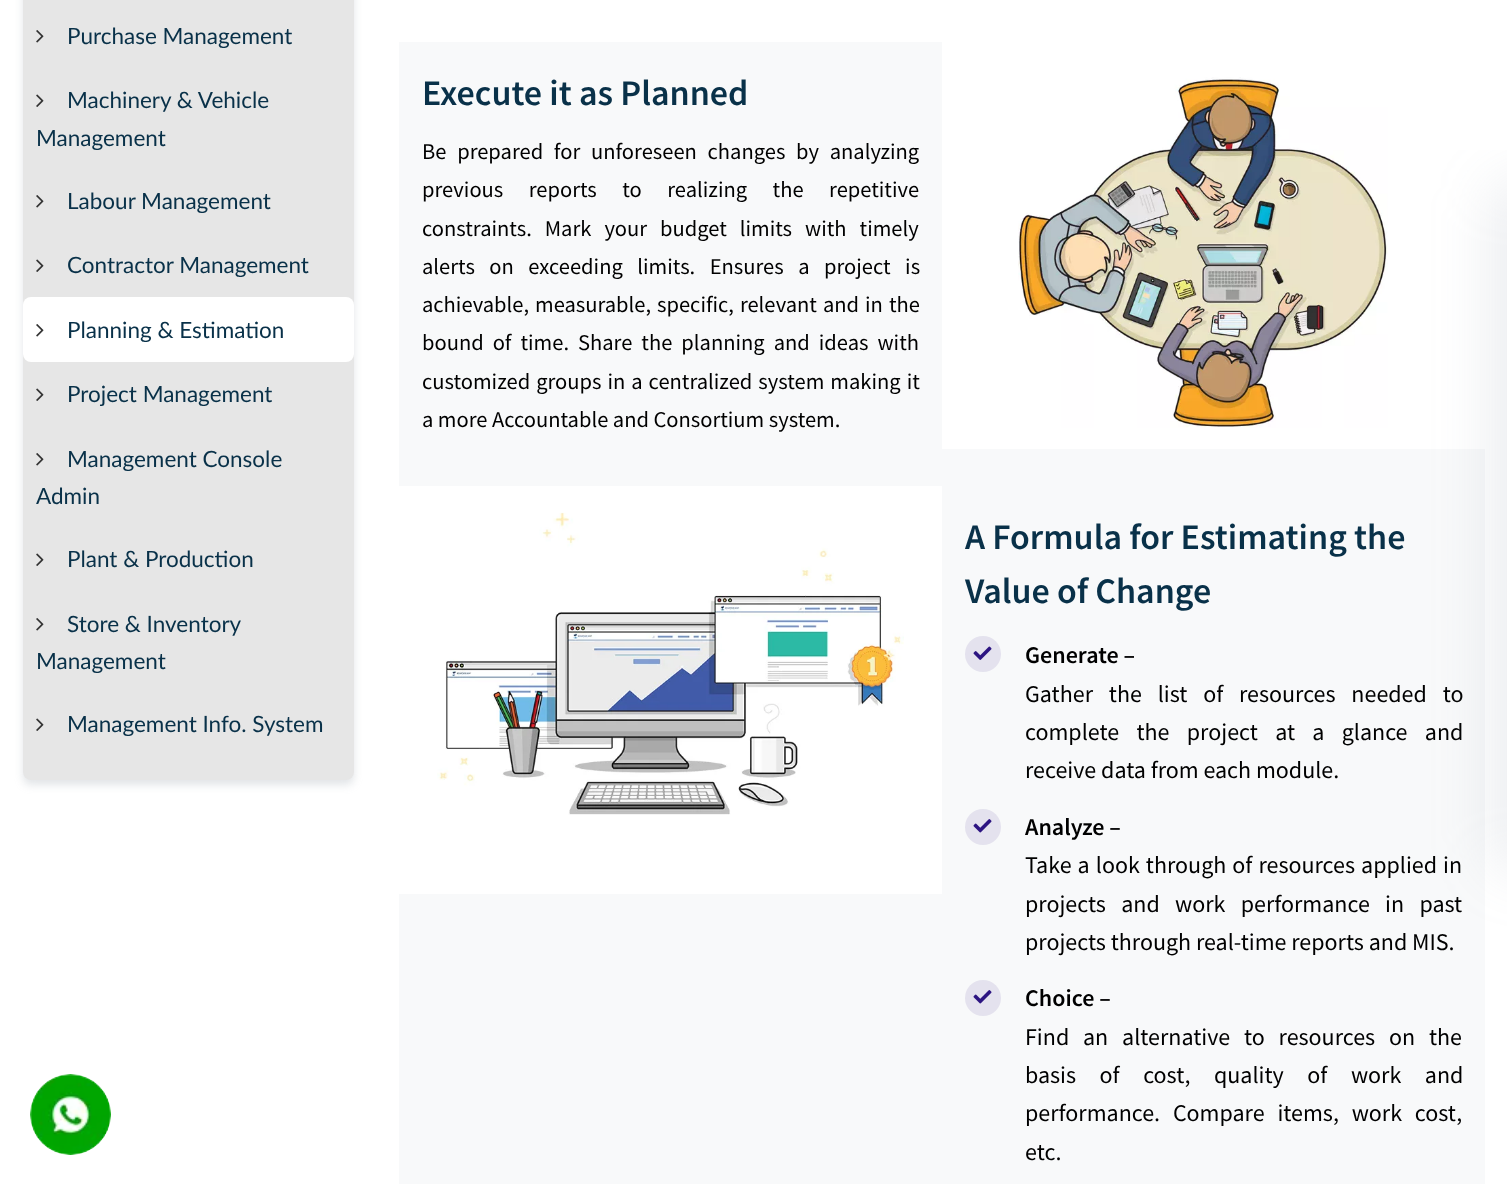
<!DOCTYPE html>
<meta charset="utf-8">
<style>body { margin: 0 } canvas { display: block }</style>
<canvas id="canvas" width="1507" height="1184"></canvas>
<script type="module">
  const canvas = document.getElementById("canvas");
  const g = canvas.getContext("2d");
  g.miterLimit = 4;
  g.fontKerning = "normal";
  function drawText(s, x, y, [font, color]) {
    g.font = font;
    g.fillStyle = color;
    g.fillText(s, x, y);
  }
  function fillBox(x, y, w, h, color) {
    g.fillStyle = color;
    g.fillRect(x, y, w, h);
  }
  function fillRounded(x, y, w, h, r, color) {
    g.fillStyle = color;
    g.beginPath();
    g.roundRect(x, y, w, h, r);
    g.fill();
  }
  async function drawPicture(src, x, y, w, h) {
    const img = new Image();
    img.src = src;
    await img.decode();
    g.drawImage(img, x, y, w, h);
  }

  const s1 = ["22.5px Lato", "#093149"];
  const s2 = ["600 36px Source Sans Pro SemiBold", "#093149"];
  const s3 = ["22.5px Source Sans Pro", "#000000"];
  const s4 = ["600 24px Source Sans Pro SemiBold", "#000000"];
  const s5 = ["24px Source Sans Pro", "#000000"];

  fillBox(0, 0, 1507, 1184, "#FFFFFF");
  g.fillStyle = "rgba(140, 152, 164, 0.25)";
  g.filter = "blur(4.5px)";
  g.beginPath();
  g.roundRect(23, -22, 331, 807, 8);
  g.fill();
  g.filter = "none";
  fillRounded(23, -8, 331, 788, 8, "#E6E6E6");
  await drawPicture("pic1.png", 36, 30, 8, 13);
  drawText("Purchase Management", 67, 44, s1);
  await drawPicture("pic2.png", 36, 94, 8, 13);
  drawText("Machinery & Vehicle", 67, 108, s1);
  drawText("Management", 36, 146, s1);
  await drawPicture("pic1.png", 36, 195, 8, 13);
  drawText("Labour Management", 67, 209, s1);
  await drawPicture("pic2.png", 36, 259, 8, 13);
  drawText("Contractor Management", 67, 273, s1);
  fillRounded(23, 297, 331, 65, 8, "#FFFFFF");
  await drawPicture("pic3.png", 36, 324, 8, 13);
  drawText("Planning & Estimation", 67, 338, s1);
  await drawPicture("pic2.png", 36, 388, 8, 13);
  drawText("Project Management", 67, 402, s1);
  await drawPicture("pic1.png", 36, 453, 8, 13);
  drawText("Management Console", 67, 467, s1);
  drawText("Admin", 36, 504, s1);
  await drawPicture("pic2.png", 36, 553, 8, 13);
  drawText("Plant & Production", 67, 567, s1);
  await drawPicture("pic1.png", 36, 618, 8, 13);
  drawText("Store & Inventory", 67, 632, s1);
  drawText("Management", 36, 669, s1);
  await drawPicture("pic2.png", 36, 718, 8, 13);
  drawText("Management Info. System", 67, 732, s1);
  fillBox(399, 42, 1086, 1142, "#F8F9FA");
  drawText("Execute it as Planned", 422, 105, s2);
  g.wordSpacing = "6.25px";
  drawText("Be prepared for unforeseen changes by analyzing", 422, 159, s3);
  g.wordSpacing = "21px";
  drawText("previous reports to realizing the repetitive", 422, 197, s3);
  g.wordSpacing = "8.5px";
  drawText("constraints. Mark your budget limits with timely", 422, 236, s3);
  g.wordSpacing = "10px";
  drawText("alerts on exceeding limits. Ensures a project is", 422, 274, s3);
  g.wordSpacing = "1.5px";
  drawText("achievable, measurable, specific, relevant and in the", 422, 312, s3);
  g.wordSpacing = "4.5px";
  drawText("bound of time. Share the planning and ideas with", 422, 350, s3);
  g.wordSpacing = "1.5px";
  drawText("customized groups in a centralized system making it", 422, 389, s3);
  g.wordSpacing = "0px";
  drawText("a more Accountable and Consortium system.", 422, 427, s3);
  fillBox(942, 42, 543, 407, "#FFFFFF");
  await drawPicture("pic4.png", 1018, 77, 370, 351);
  fillBox(399, 486, 543, 408, "#FFFFFF");
  await drawPicture("pic5.png", 437, 512, 467, 303);
  drawText("A Formula for Estimating the", 965, 549, s2);
  drawText("Value of Change", 965, 603, s2);
  g.fillStyle = "#E4E2EE";
  g.beginPath();
  g.arc(983, 654, 18, 0, Math.PI * 2);
  g.fill();
  await drawPicture("pic6.png", 973, 646, 19, 14);
  drawText("Generate –", 1025, 663, s4);
  g.wordSpacing = "11px";
  drawText("Gather the list of resources needed to", 1025, 702, s5);
  g.wordSpacing = "12.5px";
  drawText("complete the project at a glance and", 1025, 740, s5);
  g.wordSpacing = "0px";
  drawText("receive data from each module.", 1025, 778, s5);
  g.fillStyle = "#E4E2EE";
  g.beginPath();
  g.arc(983, 827, 18, 0, Math.PI * 2);
  g.fill();
  await drawPicture("pic7.png", 973, 819, 19, 14);
  drawText("Analyze –", 1025, 835, s4);
  g.wordSpacing = "1.25px";
  drawText("Take a look through of resources applied in", 1025, 873, s5);
  g.wordSpacing = "10.5px";
  drawText("projects and work performance in past", 1025, 912, s5);
  g.wordSpacing = "0px";
  drawText("projects through real-time reports and MIS.", 1025, 950, s5);
  g.fillStyle = "#E4E2EE";
  g.beginPath();
  g.arc(983, 998, 18, 0, Math.PI * 2);
  g.fill();
  await drawPicture("pic7.png", 973, 990, 19, 14);
  drawText("Choice –", 1025, 1006, s4);
  g.wordSpacing = "9px";
  drawText("Find an alternative to resources on the", 1025, 1045, s5);
  g.wordSpacing = "18.75px";
  drawText("basis of cost, quality of work and", 1025, 1083, s5);
  g.wordSpacing = "8px";
  drawText("performance. Compare items, work cost,", 1025, 1121, s5);
  g.wordSpacing = "0px";
  drawText("etc.", 1025, 1160, s5);
  g.save();
  g.beginPath();
  g.rect(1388, 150, 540, 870);
  g.clip();
  g.fillStyle = "rgba(140, 152, 164, 0.18)";
  g.filter = "blur(30px)";
  g.beginPath();
  g.roundRect(1493, 183, 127, 686, 23);
  g.fill();
  g.filter = "none";
  g.restore();
  await drawPicture("pic8.png", 30, 1074, 81, 81);
</script>
